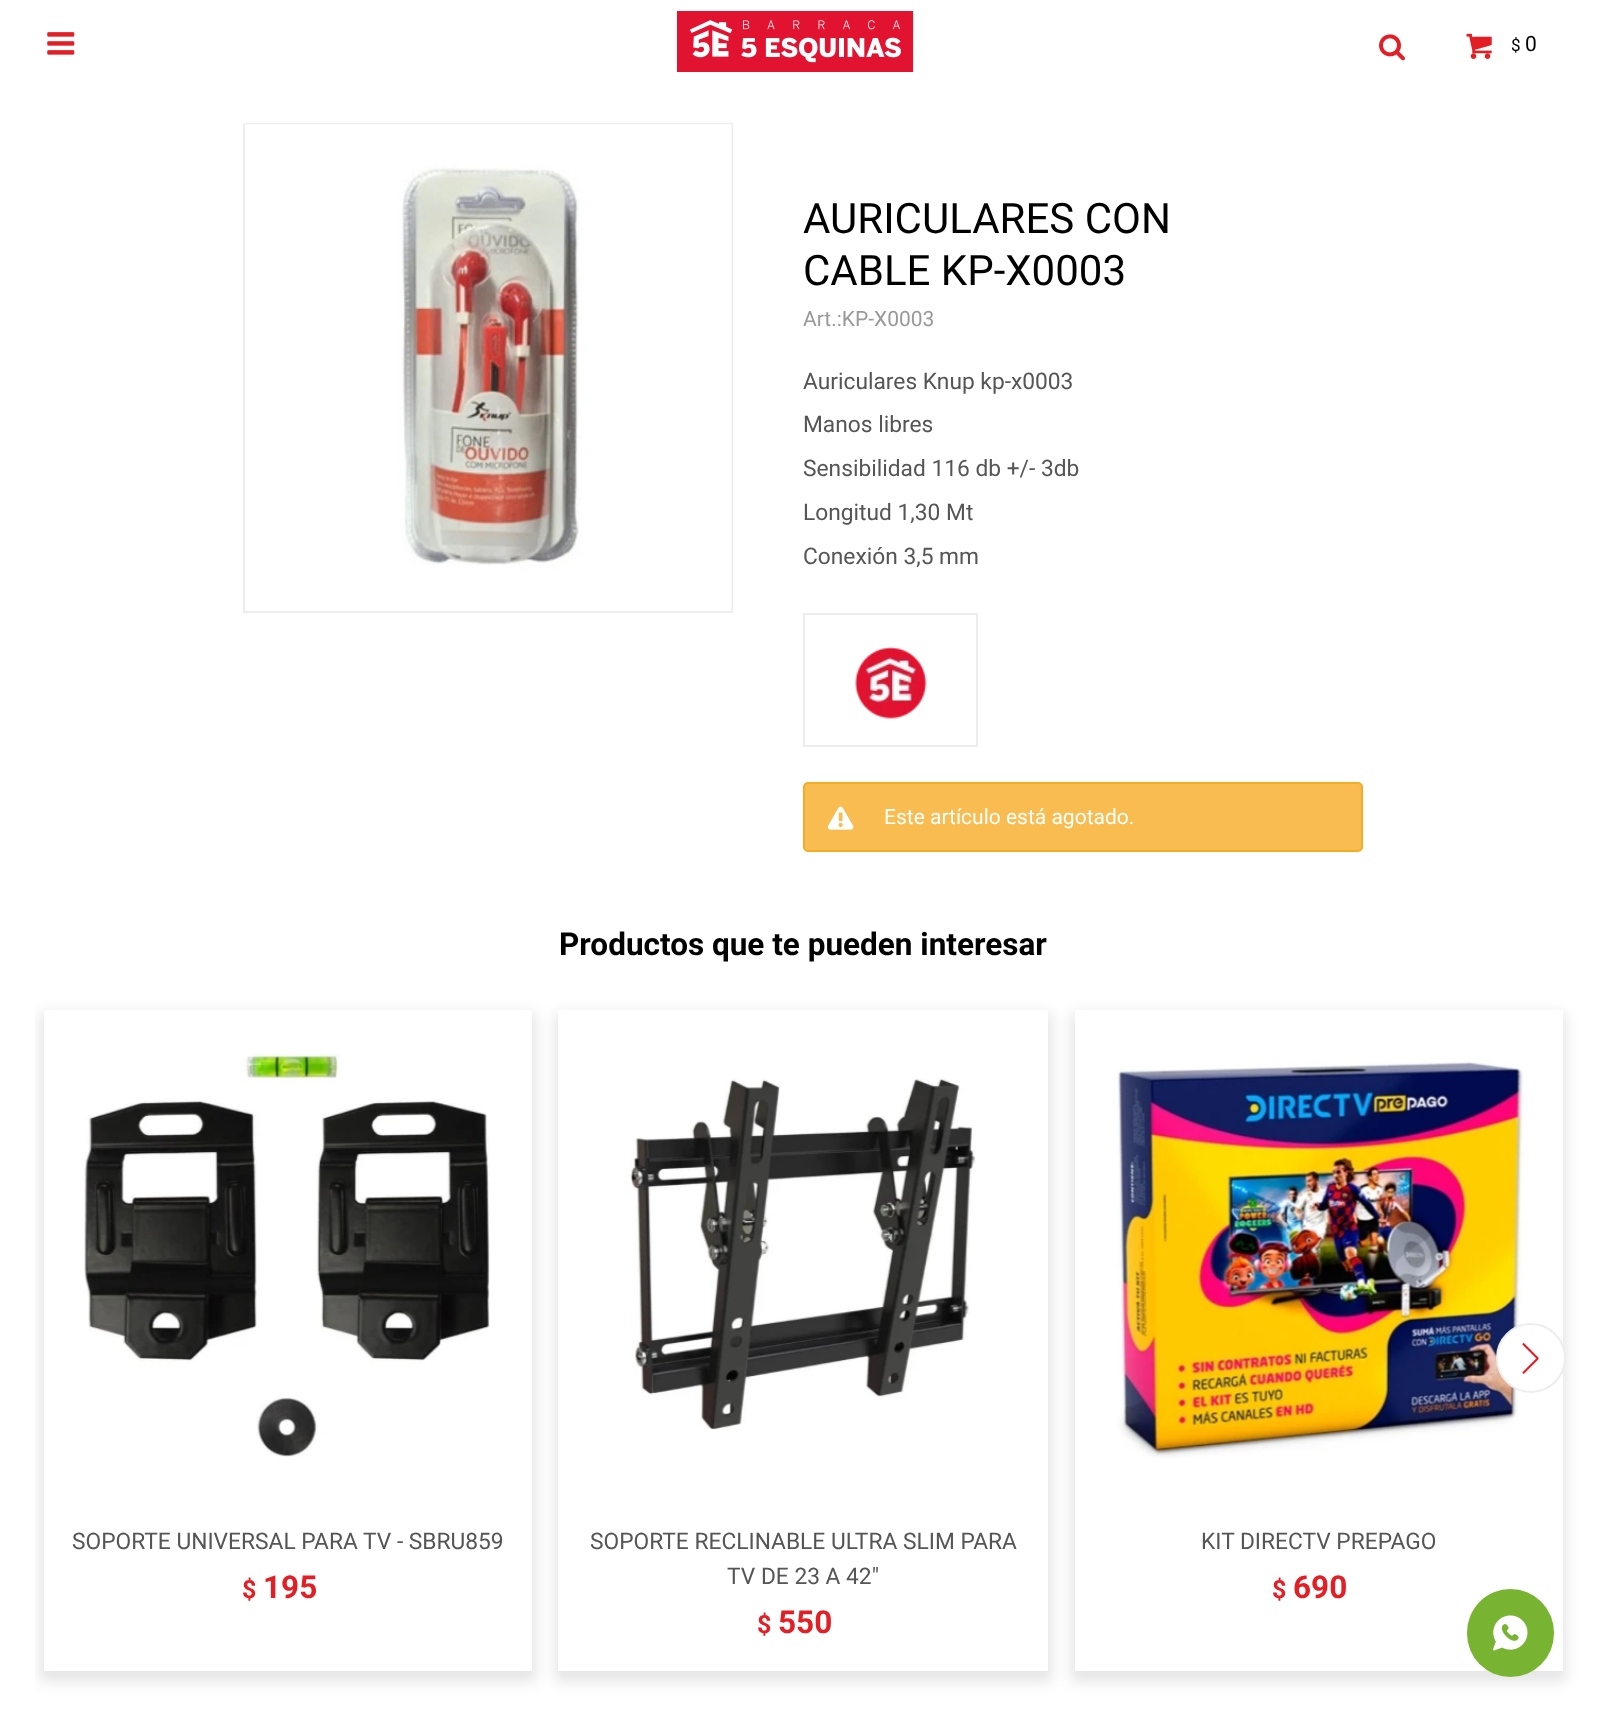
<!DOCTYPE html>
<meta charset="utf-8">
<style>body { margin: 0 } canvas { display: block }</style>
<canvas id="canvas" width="1606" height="1729"></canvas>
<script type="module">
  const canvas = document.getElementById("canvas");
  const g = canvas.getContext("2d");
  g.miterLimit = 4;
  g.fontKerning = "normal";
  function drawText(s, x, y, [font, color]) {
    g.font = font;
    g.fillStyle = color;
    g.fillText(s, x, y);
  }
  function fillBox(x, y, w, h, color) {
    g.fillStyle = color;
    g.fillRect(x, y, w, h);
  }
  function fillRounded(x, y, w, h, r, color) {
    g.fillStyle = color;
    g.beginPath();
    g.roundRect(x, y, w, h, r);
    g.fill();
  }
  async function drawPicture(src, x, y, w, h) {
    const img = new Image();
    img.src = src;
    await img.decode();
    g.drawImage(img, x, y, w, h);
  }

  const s1 = ["17px Roboto", "#000000"];
  const s2 = ["21px Roboto", "#000000"];
  const s3 = ["42px Roboto", "#000000"];
  const s4 = ["21px Roboto", "#999999"];
  const s5 = ["22.75px Roboto", "#555555"];
  const s6 = ["21px Roboto", "#FFFFFF"];
  const s7 = ["bold 31.5px Roboto", "#000000"];
  const s8 = ["bold 25px Roboto", "#E31E24"];
  const s9 = ["bold 31.5px Roboto", "#E31E24"];

  fillBox(0, 0, 1606, 1729, "#FFFFFF");
  await drawPicture("pic1.png", 47, 32, 28, 23);
  await drawPicture("pic2.png", 677, 11, 237, 61);
  await drawPicture("pic3.png", 1379, 34, 26, 27);
  await drawPicture("pic4.png", 1466, 33, 26, 26);
  drawText("$", 1511, 51, s1);
  drawText("0", 1525, 51, s2);
  g.strokeStyle = "#EDEDED";
  g.lineWidth = 2;
  g.strokeRect(244, 124, 488, 488);
  await drawPicture("pic5.png", 245, 124, 487, 487);
  drawText("AURICULARES CON", 803, 233, s3);
  drawText("CABLE KP-X0003", 803, 285, s3);
  drawText("Art.:KP-X0003", 803, 326, s4);
  drawText("Auriculares Knup kp-x0003", 803, 389, s5);
  drawText("Manos libres", 803, 432, s5);
  drawText("Sensibilidad 116 db +/- 3db", 803, 476, s5);
  drawText("Longitud 1,30 Mt", 803, 520, s5);
  drawText("Conexión 3,5 mm", 803, 564, s5);
  g.strokeRect(804, 614, 173, 132);
  await drawPicture("pic6.png", 855, 646, 72, 73);
  g.fillStyle = "#F8BC50";
  g.beginPath();
  g.roundRect(804, 783, 558, 68, 4);
  g.fill();
  g.strokeStyle = "#F6AB24";
  g.stroke();
  await drawPicture("pic7.png", 827, 806, 27, 24);
  drawText("Este artículo está agotado.", 884, 824, s6);
  drawText("Productos que te pueden interesar", 559, 955, s7);
  await drawPicture("pic11.png", 1117, 1061, 408, 397);
  g.save();
  g.beginPath();
  g.moveTo(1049, 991);
  g.lineTo(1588, 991);
  g.lineTo(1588, 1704);
  g.lineTo(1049, 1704);
  g.closePath();
  g.moveTo(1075, 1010);
  g.lineTo(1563, 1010);
  g.lineTo(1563, 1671);
  g.lineTo(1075, 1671);
  g.closePath();
  g.clip("evenodd");
  g.fillStyle = "rgba(0, 0, 0, 0.1)";
  g.filter = "blur(7px)";
  g.beginPath();
  g.rect(1071, 1013, 495, 669);
  g.fill();
  g.filter = "none";
  g.restore();
  g.fillStyle = "#FFFFFF";
  g.beginPath();
  g.arc(1531, 1358, 34, 0, Math.PI * 2);
  g.fill();
  g.strokeStyle = "#EDEDED";
  g.stroke();
  await drawPicture("pic8.png", 1522, 1343, 17, 31);
  await drawPicture("pic9.png", 84, 1053, 406, 404);
  g.save();
  g.beginPath();
  g.rect(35, 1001, 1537, 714);
  g.clip();
  g.beginPath();
  g.moveTo(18, 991);
  g.lineTo(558, 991);
  g.lineTo(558, 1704);
  g.lineTo(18, 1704);
  g.closePath();
  g.moveTo(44, 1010);
  g.lineTo(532, 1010);
  g.lineTo(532, 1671);
  g.lineTo(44, 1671);
  g.closePath();
  g.clip("evenodd");
  g.fillStyle = "rgba(0, 0, 0, 0.1)";
  g.filter = "blur(7px)";
  g.beginPath();
  g.rect(40, 1013, 496, 669);
  g.fill();
  g.filter = "none";
  g.restore();
  drawText("SOPORTE UNIVERSAL PARA TV - SBRU859", 72, 1549, s5);
  drawText("$", 242, 1598, s8);
  drawText("195", 263, 1598, s9);
  await drawPicture("pic10.png", 629, 1078, 347, 352);
  g.save();
  g.beginPath();
  g.moveTo(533, 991);
  g.lineTo(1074, 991);
  g.lineTo(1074, 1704);
  g.lineTo(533, 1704);
  g.closePath();
  g.moveTo(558, 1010);
  g.lineTo(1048, 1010);
  g.lineTo(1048, 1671);
  g.lineTo(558, 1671);
  g.closePath();
  g.clip("evenodd");
  g.fillStyle = "rgba(0, 0, 0, 0.1)";
  g.filter = "blur(7px)";
  g.beginPath();
  g.rect(555, 1013, 497, 669);
  g.fill();
  g.filter = "none";
  g.restore();
  drawText("SOPORTE RECLINABLE ULTRA SLIM PARA", 590, 1549, s5);
  drawText("TV DE 23 A 42\"", 727, 1584, s5);
  drawText("$", 757, 1633, s8);
  drawText("550", 778, 1633, s9);
  drawText("KIT DIRECTV PREPAGO", 1201, 1549, s5);
  drawText("$", 1272, 1598, s8);
  drawText("690", 1293, 1598, s9);
  fillRounded(1467, 1589, 87, 88, 43.5, "#78B432");
  await drawPicture("pic12.png", 1493, 1615, 35, 36);
</script>
